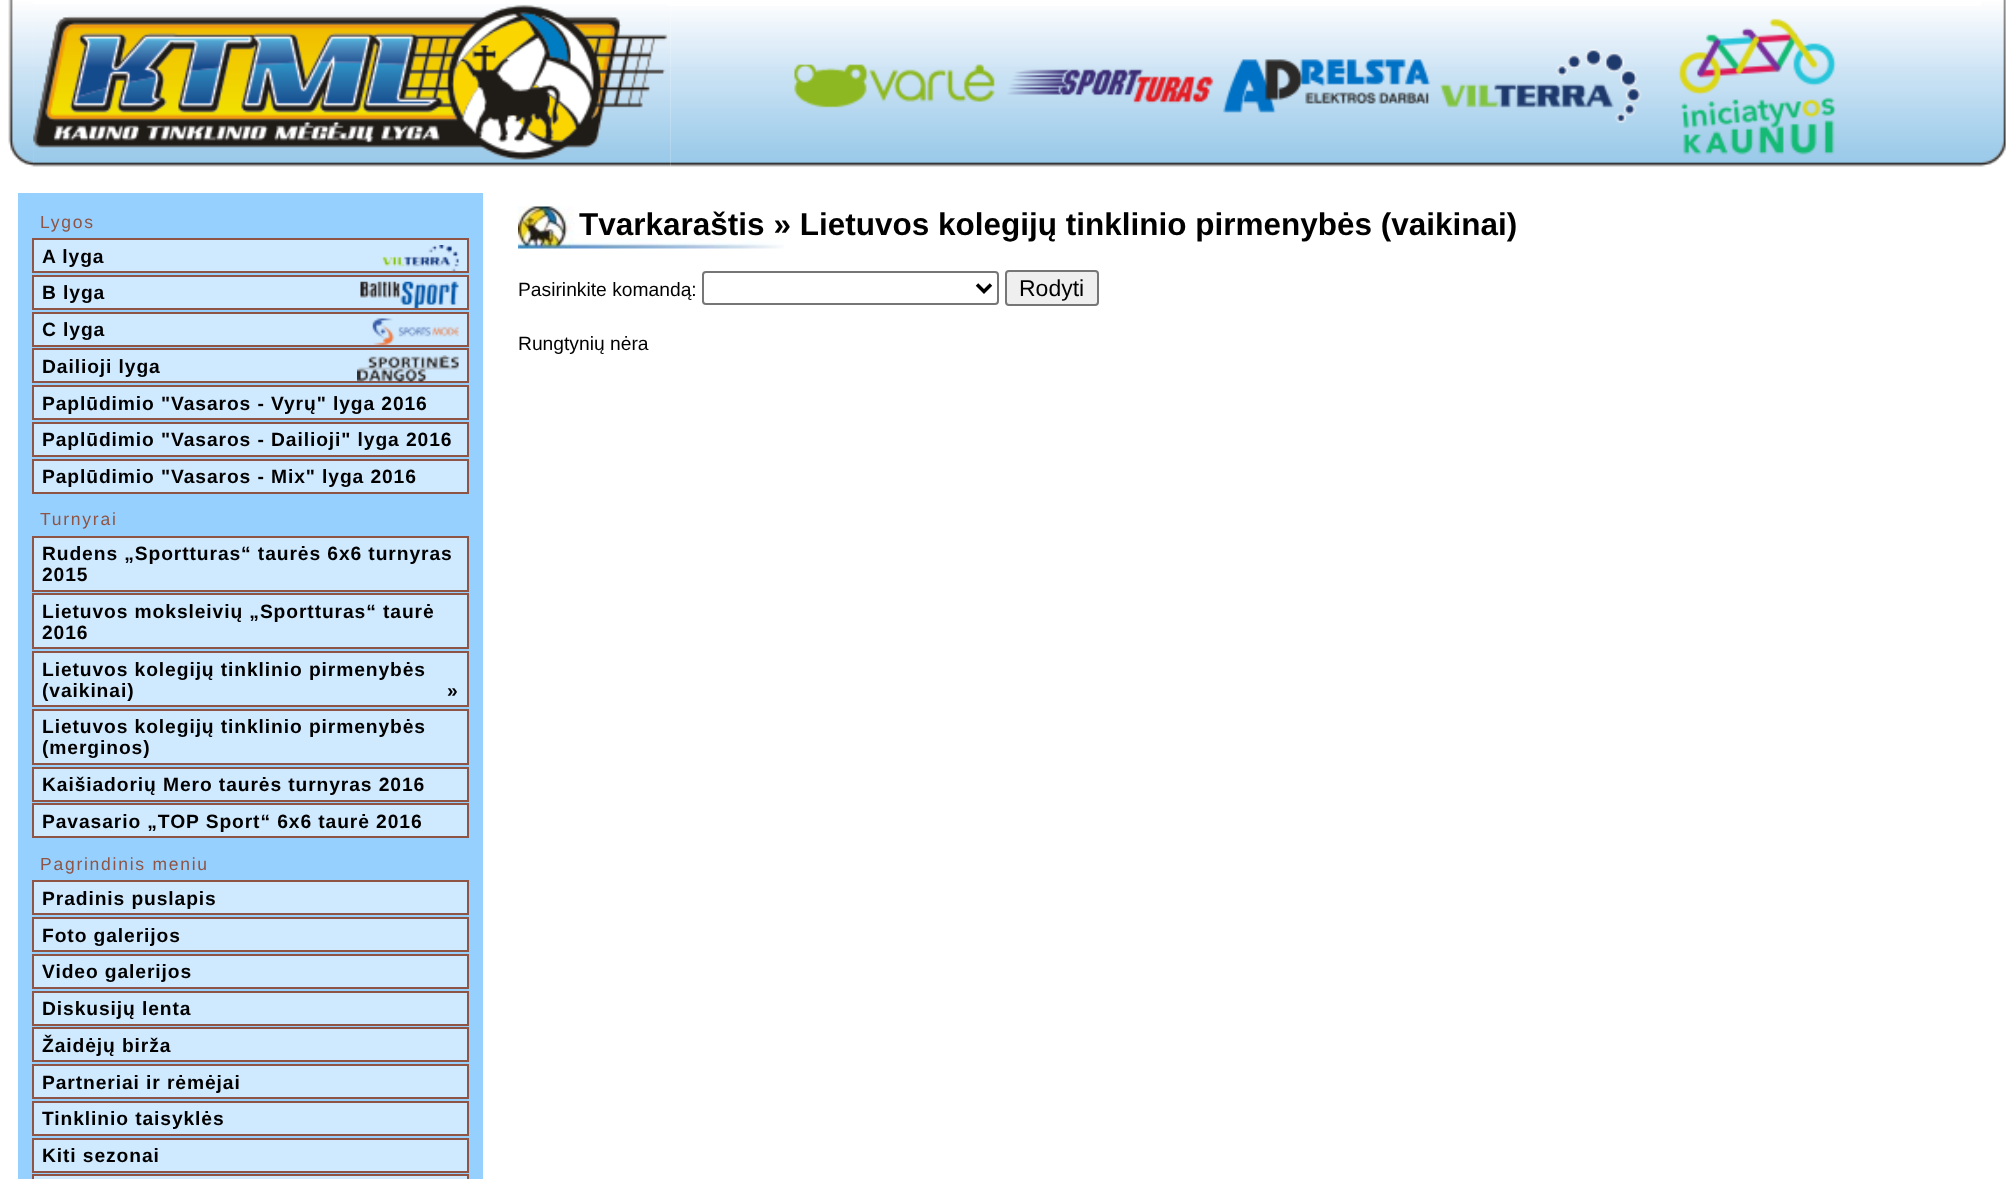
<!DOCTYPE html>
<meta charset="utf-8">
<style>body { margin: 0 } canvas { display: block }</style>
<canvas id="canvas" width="2013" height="1179"></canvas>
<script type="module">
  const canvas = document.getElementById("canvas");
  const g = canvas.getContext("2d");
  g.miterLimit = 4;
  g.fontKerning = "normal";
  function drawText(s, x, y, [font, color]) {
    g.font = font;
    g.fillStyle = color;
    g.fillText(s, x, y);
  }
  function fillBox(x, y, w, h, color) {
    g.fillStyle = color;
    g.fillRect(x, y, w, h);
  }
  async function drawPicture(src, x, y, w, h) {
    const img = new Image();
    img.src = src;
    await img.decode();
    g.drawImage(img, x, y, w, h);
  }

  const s1 = ["17.5px Liberation Sans", "#8F5444"];
  const s2 = ["bold 19.25px Liberation Sans", "#000000"];
  const s3 = ["bold 31.5px Liberation Sans", "#000000"];
  const s4 = ["19.25px Liberation Sans", "#000000"];
  const s5 = ["23px Liberation Sans", "#000000"];

  fillBox(0, 0, 2013, 1179, "#FFFFFF");
  await drawPicture("pic2.png", 33, 6, 638, 161);
  await drawPicture("pic1.png", 8, 0, 26, 167);
  await drawPicture("pic3.png", 33, 4, 635, 163);
  await drawPicture("pic4.png", 670, 6, 1311, 161);
  await drawPicture("pic5.png", 794, 64, 201, 44);
  await drawPicture("pic6.png", 1007, 68, 207, 36);
  await drawPicture("pic7.png", 1223, 59, 208, 54);
  await drawPicture("pic8.png", 1440, 48, 202, 75);
  await drawPicture("pic9.png", 1678, 18, 158, 137);
  await drawPicture("pic10.png", 1981, 0, 25, 167);
  fillBox(18, 193, 465, 986, "#96D0FF");
  g.letterSpacing = "1.75px";
  drawText("Lygos", 40, 228, s1);
  g.fillStyle = "#CFE9FF";
  g.beginPath();
  g.rect(33, 239, 435, 33);
  g.fill();
  g.strokeStyle = "#8F5444";
  g.lineWidth = 2;
  g.stroke();
  g.letterSpacing = "0.9px";
  drawText("A lyga", 42, 263, s2);
  await drawPicture("pic11.png", 381, 245, 78, 27);
  g.fillStyle = "#CFE9FF";
  g.beginPath();
  g.rect(33, 276, 435, 33);
  g.fill();
  g.stroke();
  drawText("B lyga", 42, 299, s2);
  await drawPicture("pic12.png", 360, 281, 99, 27);
  g.fillStyle = "#CFE9FF";
  g.beginPath();
  g.rect(33, 313, 435, 33);
  g.fill();
  g.stroke();
  drawText("C lyga", 42, 336, s2);
  await drawPicture("pic13.png", 372, 318, 87, 27);
  g.fillStyle = "#CFE9FF";
  g.beginPath();
  g.rect(33, 349, 435, 33);
  g.fill();
  g.stroke();
  drawText("Dailioji lyga", 42, 373, s2);
  await drawPicture("pic14.png", 357, 355, 102, 27);
  g.fillStyle = "#CFE9FF";
  g.beginPath();
  g.rect(33, 386, 435, 33);
  g.fill();
  g.stroke();
  drawText("Paplūdimio \"Vasaros - Vyrų\" lyga 2016", 42, 410, s2);
  g.fillStyle = "#CFE9FF";
  g.beginPath();
  g.rect(33, 423, 435, 33);
  g.fill();
  g.stroke();
  drawText("Paplūdimio \"Vasaros - Dailioji\" lyga 2016", 42, 446, s2);
  g.fillStyle = "#CFE9FF";
  g.beginPath();
  g.rect(33, 460, 435, 33);
  g.fill();
  g.stroke();
  drawText("Paplūdimio \"Vasaros - Mix\" lyga 2016", 42, 483, s2);
  g.letterSpacing = "1.75px";
  drawText("Turnyrai", 40, 525, s1);
  g.fillStyle = "#CFE9FF";
  g.beginPath();
  g.rect(33, 537, 435, 54);
  g.fill();
  g.stroke();
  g.letterSpacing = "0.9px";
  drawText("Rudens „Sportturas“ taurės 6x6 turnyras", 42, 560, s2);
  drawText("2015", 42, 581, s2);
  g.fillStyle = "#CFE9FF";
  g.beginPath();
  g.rect(33, 594, 435, 54);
  g.fill();
  g.stroke();
  drawText("Lietuvos moksleivių „Sportturas“ taurė", 42, 618, s2);
  drawText("2016", 42, 639, s2);
  g.fillStyle = "#CFE9FF";
  g.beginPath();
  g.rect(33, 652, 435, 54);
  g.fill();
  g.stroke();
  drawText("Lietuvos kolegijų tinklinio pirmenybės", 42, 676, s2);
  drawText("(vaikinai)", 42, 697, s2);
  drawText("»", 447, 697, s2);
  g.fillStyle = "#CFE9FF";
  g.beginPath();
  g.rect(33, 710, 435, 54);
  g.fill();
  g.stroke();
  drawText("Lietuvos kolegijų tinklinio pirmenybės", 42, 733, s2);
  drawText("(merginos)", 42, 754, s2);
  g.fillStyle = "#CFE9FF";
  g.beginPath();
  g.rect(33, 768, 435, 33);
  g.fill();
  g.stroke();
  drawText("Kaišiadorių Mero taurės turnyras 2016", 42, 791, s2);
  g.fillStyle = "#CFE9FF";
  g.beginPath();
  g.rect(33, 804, 435, 33);
  g.fill();
  g.stroke();
  drawText("Pavasario „TOP Sport“ 6x6 taurė 2016", 42, 828, s2);
  g.letterSpacing = "1.75px";
  drawText("Pagrindinis meniu", 40, 870, s1);
  g.fillStyle = "#CFE9FF";
  g.beginPath();
  g.rect(33, 881, 435, 33);
  g.fill();
  g.stroke();
  g.letterSpacing = "0.9px";
  drawText("Pradinis puslapis", 42, 905, s2);
  g.fillStyle = "#CFE9FF";
  g.beginPath();
  g.rect(33, 918, 435, 33);
  g.fill();
  g.stroke();
  drawText("Foto galerijos", 42, 942, s2);
  g.fillStyle = "#CFE9FF";
  g.beginPath();
  g.rect(33, 955, 435, 33);
  g.fill();
  g.stroke();
  drawText("Video galerijos", 42, 978, s2);
  g.fillStyle = "#CFE9FF";
  g.beginPath();
  g.rect(33, 992, 435, 33);
  g.fill();
  g.stroke();
  drawText("Diskusijų lenta", 42, 1015, s2);
  g.fillStyle = "#CFE9FF";
  g.beginPath();
  g.rect(33, 1028, 435, 33);
  g.fill();
  g.stroke();
  drawText("Žaidėjų birža", 42, 1052, s2);
  g.fillStyle = "#CFE9FF";
  g.beginPath();
  g.rect(33, 1065, 435, 33);
  g.fill();
  g.stroke();
  drawText("Partneriai ir rėmėjai", 42, 1089, s2);
  g.fillStyle = "#CFE9FF";
  g.beginPath();
  g.rect(33, 1102, 435, 33);
  g.fill();
  g.stroke();
  drawText("Tinklinio taisyklės", 42, 1125, s2);
  g.fillStyle = "#CFE9FF";
  g.beginPath();
  g.rect(33, 1139, 435, 33);
  g.fill();
  g.stroke();
  drawText("Kiti sezonai", 42, 1162, s2);
  g.fillStyle = "#CFE9FF";
  g.beginPath();
  g.rect(33, 1175, 435, 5);
  g.fill();
  g.stroke();
  await drawPicture("pic15.png", 518, 206, 266, 43);
  g.letterSpacing = "0px";
  drawText("Tvarkaraštis » Lietuvos kolegijų tinklinio pirmenybės (vaikinai)", 579, 235, s3);
  drawText("Pasirinkite komandą:", 518, 296, s4);
  g.beginPath();
  g.roundRect(703, 272, 295, 32, 3);
  g.strokeStyle = "#767676";
  g.stroke();
  g.beginPath();
  g.moveTo(977, 284.5);
  g.lineTo(984, 291.5);
  g.lineTo(991, 284.5);
  g.strokeStyle = "#000000";
  g.lineWidth = 3.5;
  g.stroke();
  g.fillStyle = "#EFEFEF";
  g.beginPath();
  g.roundRect(1006, 271, 92, 34, 3);
  g.fill();
  g.strokeStyle = "#767676";
  g.lineWidth = 2;
  g.stroke();
  drawText("Rodyti", 1019, 296, s5);
  drawText("Rungtynių nėra", 518, 350, s4);
</script>
